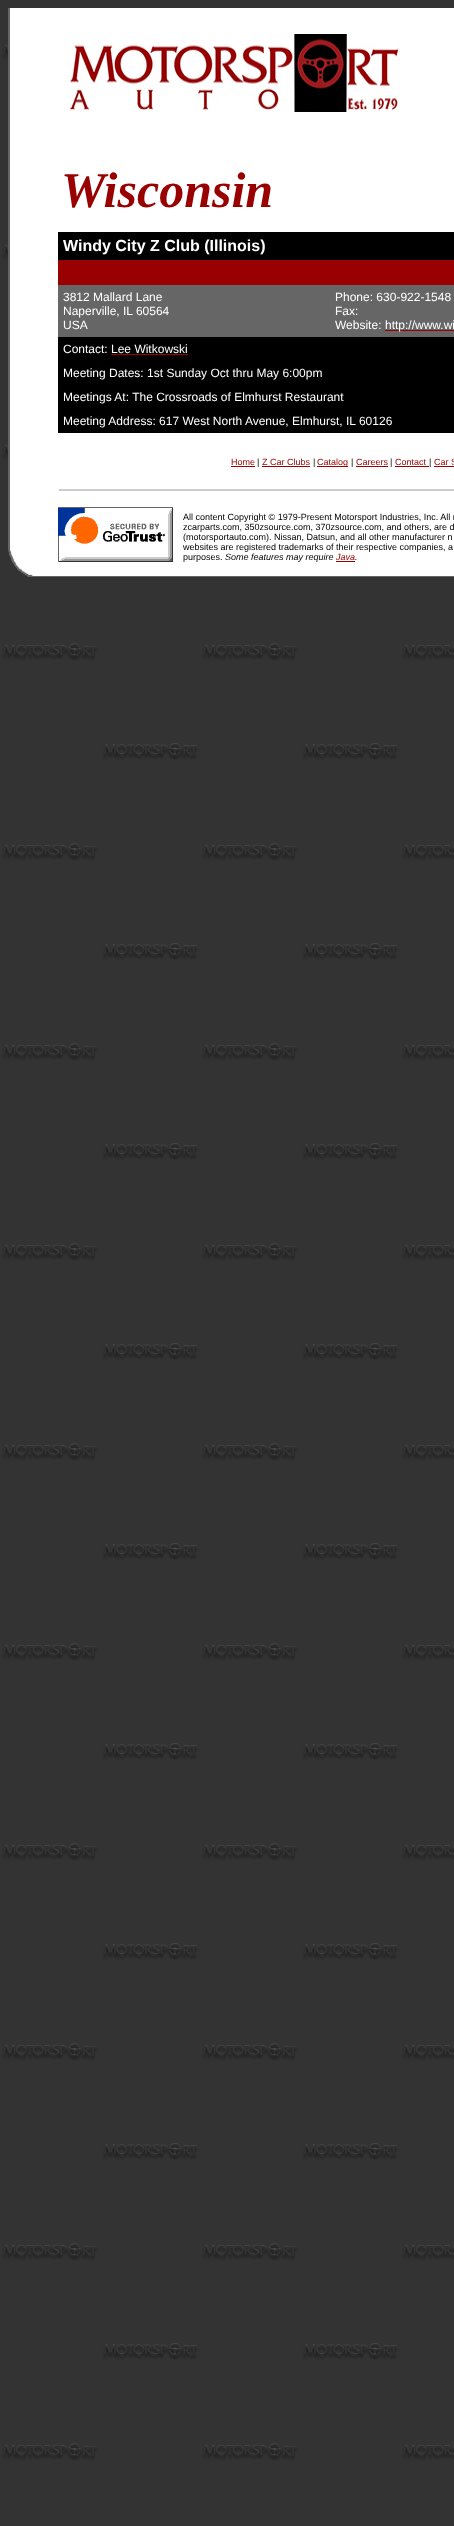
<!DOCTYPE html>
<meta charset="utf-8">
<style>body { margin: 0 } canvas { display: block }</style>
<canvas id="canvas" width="454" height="2526"></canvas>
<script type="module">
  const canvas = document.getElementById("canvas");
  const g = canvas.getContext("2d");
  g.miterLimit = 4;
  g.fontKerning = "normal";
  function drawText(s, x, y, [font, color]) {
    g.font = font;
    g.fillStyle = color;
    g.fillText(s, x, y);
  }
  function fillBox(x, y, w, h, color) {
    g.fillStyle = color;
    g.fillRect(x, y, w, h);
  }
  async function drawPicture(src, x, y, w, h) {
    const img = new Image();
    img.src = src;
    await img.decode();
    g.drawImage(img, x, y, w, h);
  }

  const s1 = ["italic bold 50px Liberation Serif", "#990000"];
  const s2 = ["bold 16px Liberation Sans", "#FFFFFF"];
  const s3 = ["12px Liberation Sans", "#FFFFFF"];
  const s4 = ["9px Liberation Sans", "#990000"];
  const s5 = ["9px Liberation Sans", "#000000"];
  const s6 = ["italic 9px Liberation Sans", "#000000"];
  const s7 = ["italic 9px Liberation Sans", "#990000"];

  fillBox(0, 0, 454, 2526, "#FFFFFF");
  await drawPicture("pic1.png", 0, 0, 454, 2526);
  fillBox(10, 8, 444, 489, "#FFFFFF");
  fillBox(8, 8, 2, 489, "#666666");
  await drawPicture("pic2.png", 70, 34, 330, 78);
  drawText("Wisconsin", 61, 207, s1);
  fillBox(58, 232, 396, 28, "#000000");
  drawText("Windy City Z Club (Illinois)", 63, 251, s2);
  fillBox(58, 260, 396, 25, "#990000");
  fillBox(58, 285, 396, 52, "#666666");
  drawText("3812 Mallard Lane", 63, 301, s3);
  drawText("Naperville, IL 60564", 63, 315, s3);
  drawText("USA", 63, 329, s3);
  drawText("Phone: 630-922-1548", 335, 301, s3);
  drawText("Fax:", 335, 315, s3);
  drawText("Website:", 335, 329, s3);
  fillBox(385, 330, 69, 1, "#990000");
  drawText("http://www.wi", 385, 329, s3);
  fillBox(58, 337, 396, 96, "#000000");
  drawText("Contact: Lee Witkowski", 63, 353, s3);
  fillBox(111, 354, 77, 1, "#990000");
  drawText("Meeting Dates: 1st Sunday Oct thru May 6:00pm", 63, 377, s3);
  drawText("Meetings At: The Crossroads of Elmhurst Restaurant", 63, 401, s3);
  drawText("Meeting Address: 617 West North Avenue, Elmhurst, IL 60126", 63, 425, s3);
  drawText("Home", 231, 465, s4);
  fillBox(231, 466, 24, 1, "#990000");
  drawText("|", 257, 465, s5);
  drawText("Z Car Clubs", 262, 465, s4);
  fillBox(262, 466, 48, 1, "#990000");
  drawText("|", 313, 465, s5);
  fillBox(317, 466, 31, 1, "#990000");
  drawText("Catalog", 317, 465, s4);
  drawText("|", 351, 465, s5);
  drawText("Careers", 356, 465, s4);
  fillBox(356, 466, 32, 1, "#990000");
  drawText("|", 390, 465, s5);
  drawText("Contact", 395, 465, s4);
  drawText("|", 429, 465, s5);
  fillBox(395, 466, 34, 1, "#990000");
  drawText("Car S", 434, 465, s4);
  fillBox(434, 466, 20, 1, "#990000");
  fillBox(59, 489, 395, 2, "#CCCCCC");
  await drawPicture("pic3.png", 8, 497, 50, 80);
  fillBox(58, 497, 396, 79, "#FFFFFF");
  fillBox(58, 576, 396, 1, "#666666");
  await drawPicture("pic4.png", 58, 507, 115, 55);
  drawText("All content Copyright © 1979-Present Motorsport Industries, Inc. All r", 183, 520, s5);
  drawText("zcarparts.com, 350zsource.com, 370zsource.com, and others, are d", 183, 530, s5);
  drawText("(motorsportauto.com). Nissan, Datsun, and all other manufacturer n", 183, 540, s5);
  drawText("websites are registered trademarks of their respective companies, a", 183, 550, s5);
  drawText("purposes.", 183, 560, s5);
  drawText("Some features may require", 225, 560, s6);
  drawText("Java", 336, 560, s7);
  drawText(".", 355, 560, s6);
  fillBox(336, 561, 19, 1, "#990000");
</script>
